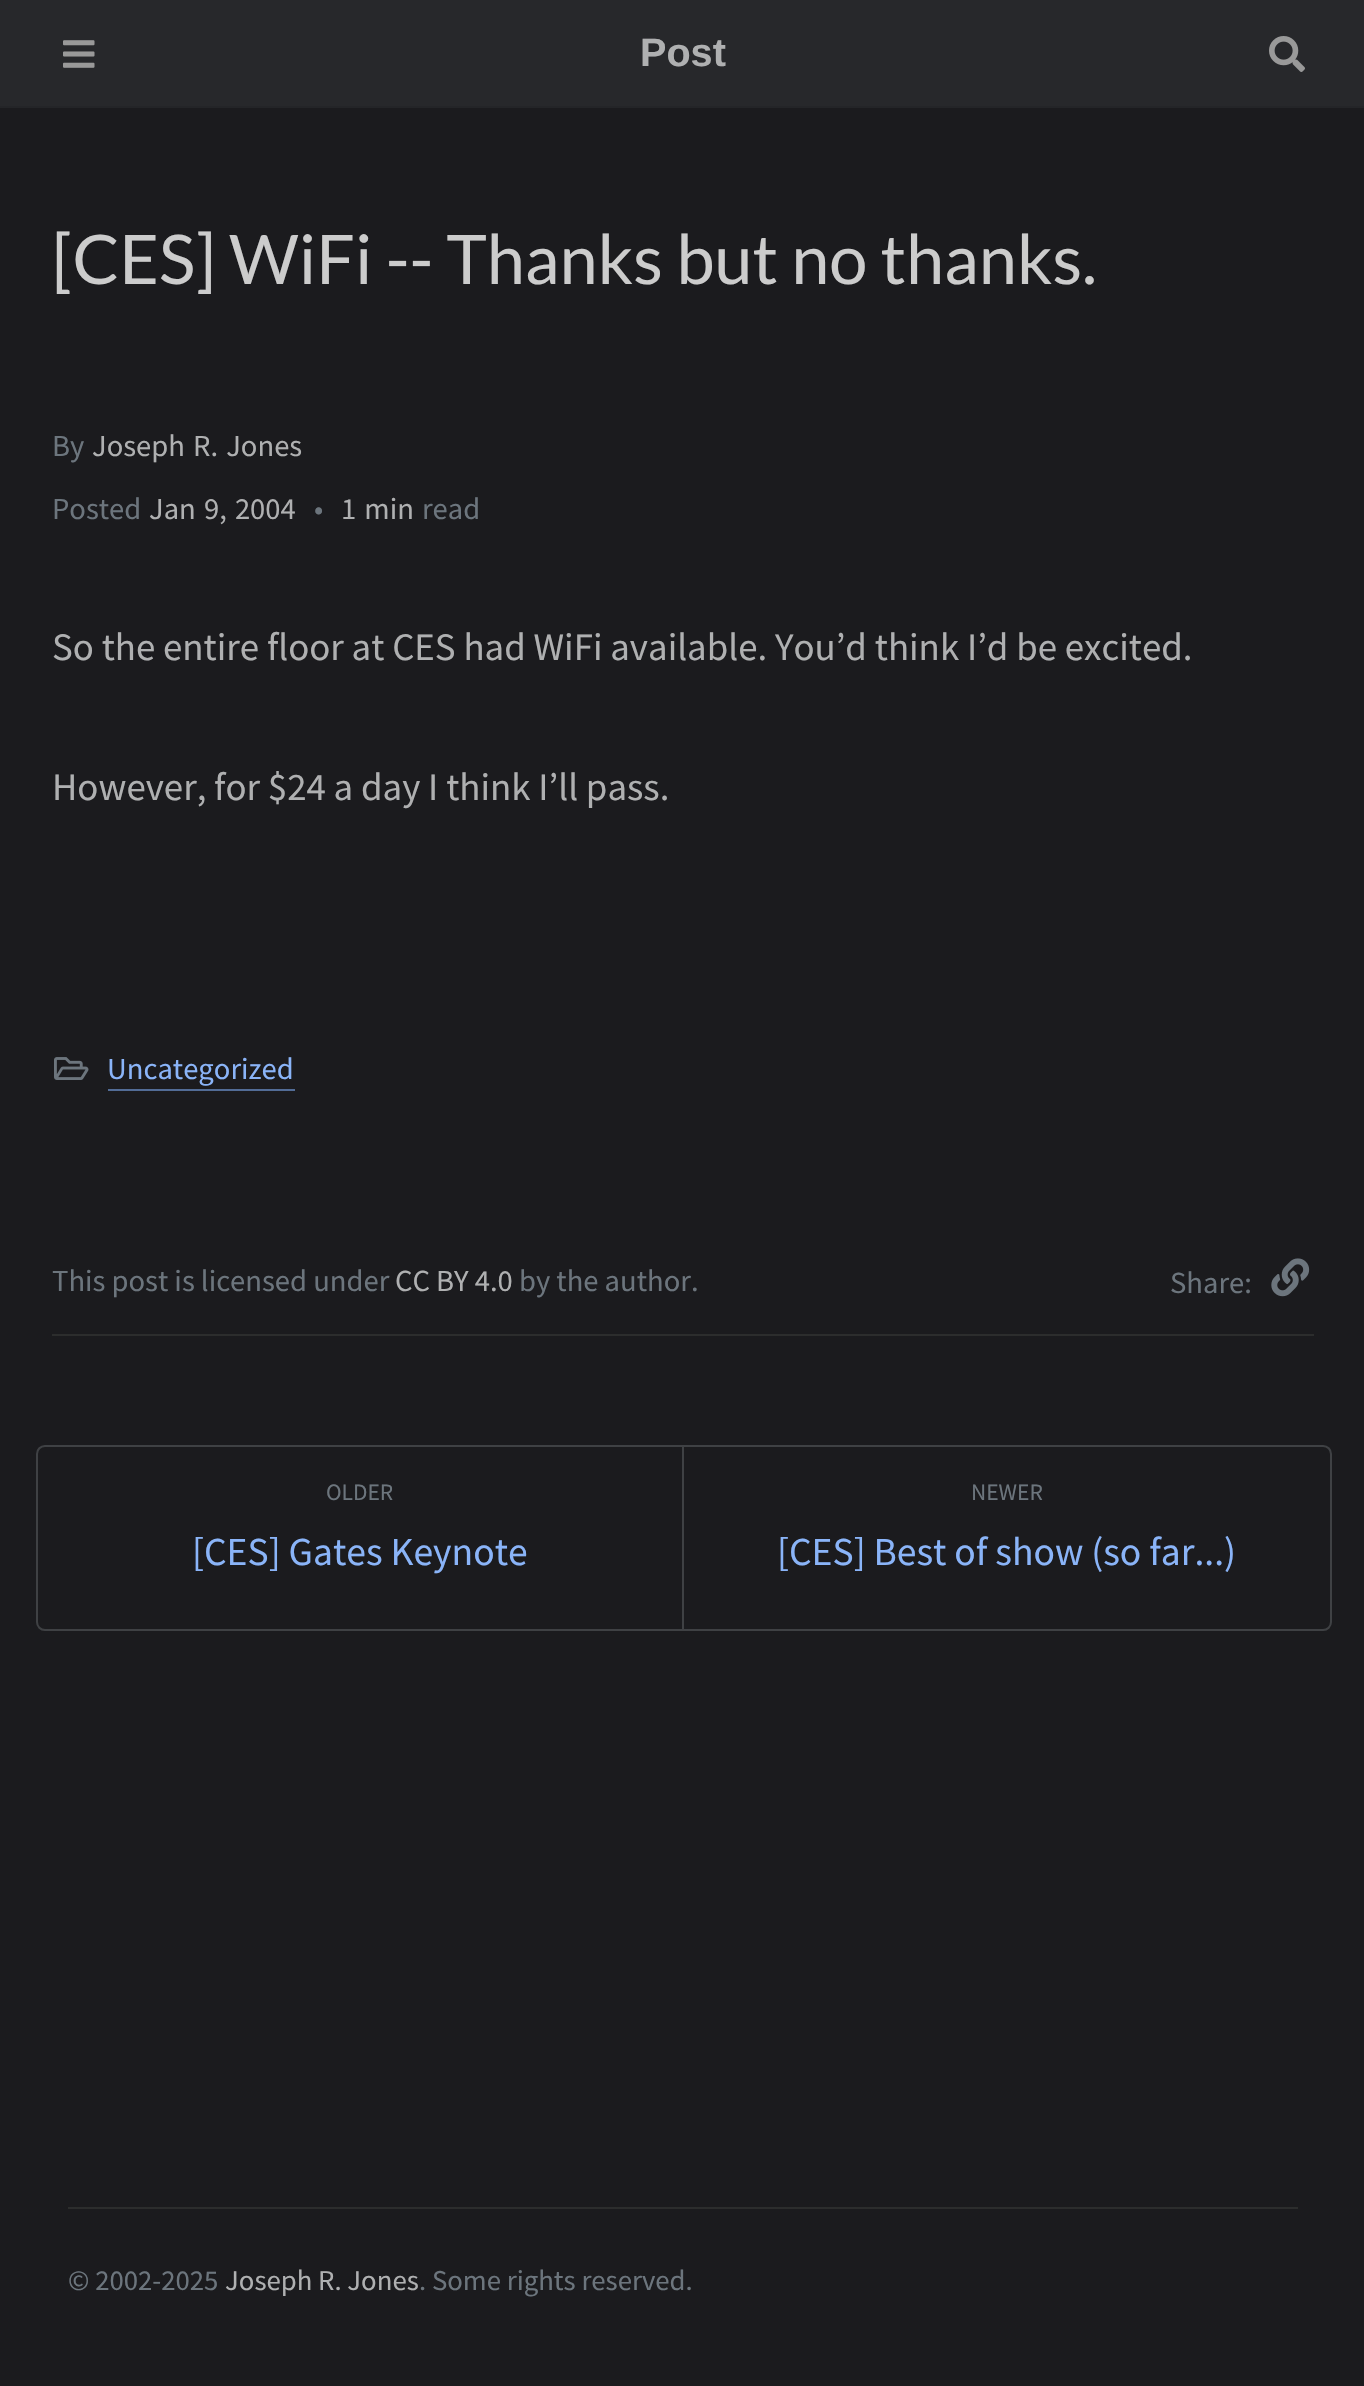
void draw(SkCanvas* canvas) {
    SkPaint paint;
    paint.setAntiAlias(true);
    auto spacedText = [&](const char* s, float x, float y, const SkFont& font, const SkPaint& ink, float letter, float word) {
        std::vector<SkGlyphID> glyphs(font.countText(s, strlen(s), SkTextEncoding::kUTF8));
        std::vector<float> xs(glyphs.size());
        font.textToGlyphs(s, strlen(s), SkTextEncoding::kUTF8, glyphs);
        font.getXPos(glyphs, xs, x);
        float extra = 0;
        for (size_t i = 0; i < glyphs.size(); i++) {
            xs[i] += extra;
            extra += letter + word * (glyphs[i] == font.unicharToGlyph(' '));
        }
        canvas->drawTextBlob(SkTextBlob::MakeFromPosHGlyphs(glyphs, xs, y, font), 0, 0, ink);
    };
    canvas->clear(0xFF1B1B1E);
    paint.setColor(0xFF27282B);
    canvas->drawRect(SkRect::MakeXYWH(0, 0, 1364, 106), paint);
    paint.setColor(0xFF242528);
    canvas->drawRect(SkRect::MakeXYWH(0, 106, 1364, 2), paint);
    canvas->drawImageRect(SkImages::DeferredFromEncodedData(SkData::MakeFromFileName("img1.png")), SkRect::MakeXYWH(63, 40, 32, 28), SkSamplingOptions());
    SkFont font1(fontMgr->matchFamilyStyle("Liberation Sans", SkFontStyle::Bold()), 39.6f);
    font1.setSubpixel(true);
    paint.setColor(0xFFAFB0B1);
    canvas->drawString("Post", 640, 66, font1, paint);
    canvas->drawImageRect(SkImages::DeferredFromEncodedData(SkData::MakeFromFileName("img2.png")), SkRect::MakeXYWH(1269, 36, 36, 36), SkSamplingOptions());
    SkFont font2(fontMgr->matchFamilyStyle("Lato", SkFontStyle::Normal()), 68.4f);
    font2.setSubpixel(true);
    paint.setColor(0xFFCCCCCC);
    canvas->drawString("[CES] WiFi -- Thanks but no thanks.", 52, 284, font2, paint);
    SkFont font3(fontMgr->matchFamilyStyle("Source Sans Pro", SkFontStyle::Normal()), 30.6f);
    font3.setSubpixel(true);
    paint.setColor(0xFF6C757D);
    canvas->drawString("By", 52, 456, font3, paint);
    paint.setColor(0xFFAFB0B1);
    spacedText("Joseph R. Jones", 92, 456, font3, paint, 0, 2);
    paint.setColor(0xFF6C757D);
    canvas->drawString("Posted", 52, 519, font3, paint);
    paint.setColor(0xFFAFB0B1);
    spacedText("Jan 9, 2004", 149, 519, font3, paint, 0, 2);
    paint.setColor(0xFF6C757D);
    canvas->drawString("•", 314, 519, font3, paint);
    paint.setColor(0xFFAFB0B1);
    spacedText("1 min", 341, 519, font3, paint, 0, 2);
    paint.setColor(0xFF6C757D);
    canvas->drawString("read", 422, 519, font3, paint);
    SkFont font4(fontMgr->matchFamilyStyle("Source Sans Pro", SkFontStyle::Normal()), 38.9f);
    font4.setSubpixel(true);
    paint.setColor(0xFFAFB0B1);
    canvas->drawString("So the entire floor at CES had WiFi available. You’d think I’d be excited.", 52, 660, font4, paint);
    canvas->drawString("However, for $24 a day I think I’ll pass.", 52, 800, font4, paint);
    paint.setColor(0xFF2C2D2D);
    canvas->drawRect(SkRect::MakeXYWH(52, 1334, 1262, 2), paint);
    canvas->drawImageRect(SkImages::DeferredFromEncodedData(SkData::MakeFromFileName("img3.png")), SkRect::MakeXYWH(54, 1057, 35, 23), SkSamplingOptions());
    paint.setColor(0xFF8AB4F8);
    canvas->drawString("Uncategorized", 107, 1079, font3, paint);
    paint.setColor(0xFF526C96);
    canvas->drawRect(SkRect::MakeXYWH(108, 1089, 187, 2), paint);
    paint.setColor(0xFF6C757D);
    canvas->drawString("This post is licensed under", 52, 1291, font3, paint);
    paint.setColor(0xFFAFB0B1);
    canvas->drawString("CC BY 4.0", 395, 1291, font3, paint);
    paint.setColor(0xFF6C757D);
    canvas->drawString("by the author.", 519, 1291, font3, paint);
    canvas->drawString("Share:", 1170, 1293, font3, paint);
    canvas->drawImageRect(SkImages::DeferredFromEncodedData(SkData::MakeFromFileName("img4.png")), SkRect::MakeXYWH(1271, 1258, 39, 39), SkSamplingOptions());
    paint.setStyle(SkPaint::kStroke_Style);
    paint.setStrokeWidth(2);
    paint.setColor(0xFF3F4144);
    canvas->drawPath(SkPathBuilder().moveTo(45, 1446).lineTo(683, 1446).lineTo(683, 1630).lineTo(45, 1630).cubicTo(40.5f, 1630, 37, 1626.5f, 37, 1622).lineTo(37, 1454).cubicTo(37, 1449.5f, 40.5f, 1446, 45, 1446).close().detach(), paint);
    SkFont font5(fontMgr->matchFamilyStyle("Source Sans Pro", SkFontStyle::Normal()), 23.5f);
    font5.setSubpixel(true);
    paint.setStyle(SkPaint::kFill_Style);
    paint.setColor(0xFF6C757D);
    canvas->drawString("OLDER", 326, 1500, font5, paint);
    SkFont font6(fontMgr->matchFamilyStyle("Source Sans Pro", SkFontStyle::Normal()), 39.6f);
    font6.setSubpixel(true);
    paint.setColor(0xFF8AB4F8);
    canvas->drawString("[CES] Gates Keynote", 192, 1565, font6, paint);
    paint.setStyle(SkPaint::kStroke_Style);
    paint.setColor(0xFF3F4144);
    canvas->drawPath(SkPathBuilder().moveTo(683, 1446).lineTo(1323, 1446).cubicTo(1327.5f, 1446, 1331, 1449.5f, 1331, 1454).lineTo(1331, 1622).cubicTo(1331, 1626.5f, 1327.5f, 1630, 1323, 1630).lineTo(683, 1630).close().detach(), paint);
    paint.setStyle(SkPaint::kFill_Style);
    paint.setColor(0xFF6C757D);
    canvas->drawString("NEWER", 971, 1500, font5, paint);
    paint.setColor(0xFF8AB4F8);
    canvas->drawString("[CES] Best of show (so far...)", 777, 1565, font6, paint);
    paint.setColor(0xFF2C2D2D);
    canvas->drawRect(SkRect::MakeXYWH(68, 2207, 1230, 2), paint);
    SkFont font7(fontMgr->matchFamilyStyle("Source Sans Pro", SkFontStyle::Normal()), 28.75f);
    font7.setSubpixel(true);
    paint.setColor(0xFF6C757D);
    canvas->drawString("© 2002-2025", 68, 2290, font7, paint);
    paint.setColor(0xFFAFB0B1);
    canvas->drawString("Joseph R. Jones", 225, 2290, font7, paint);
    paint.setColor(0xFF6C757D);
    canvas->drawString(". Some rights reserved.", 419, 2290, font7, paint);
}
